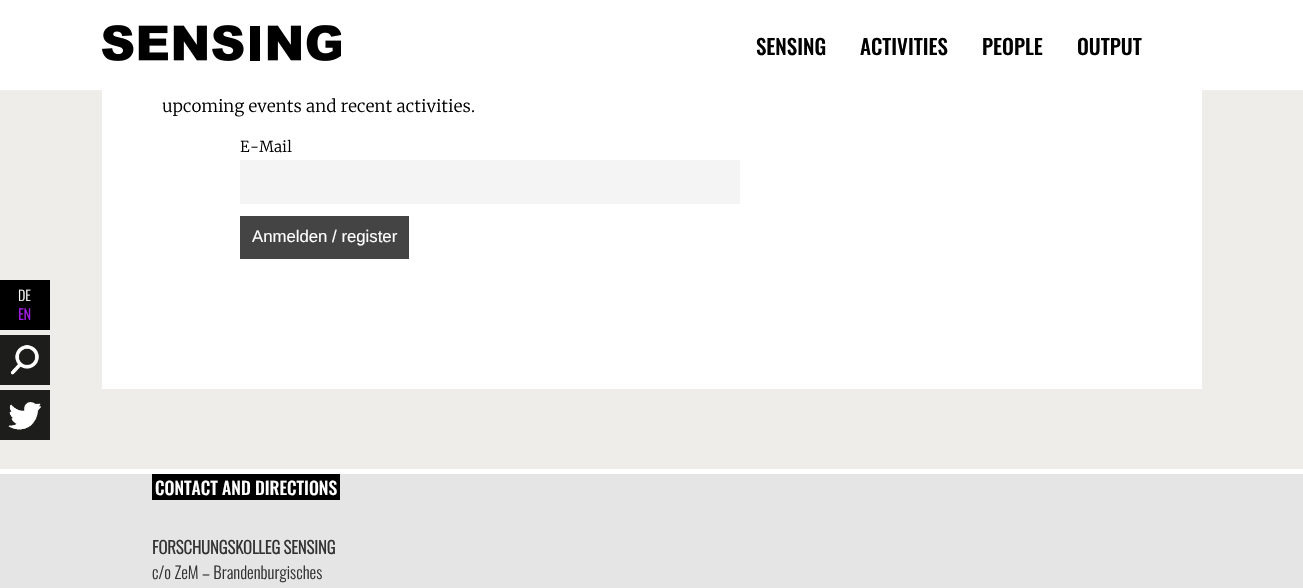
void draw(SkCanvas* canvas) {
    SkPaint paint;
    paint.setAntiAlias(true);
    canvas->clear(0xFFE5E5E5);
    paint.setColor(0xFFFFFFFF);
    canvas->drawRect(SkRect::MakeXYWH(0, 0, 1303, 90), paint);
    canvas->drawImageRect(SkImages::DeferredFromEncodedData(SkData::MakeFromFileName("img1.png")), SkRect::MakeXYWH(102, 25, 239, 36), SkSamplingOptions());
    SkFont font1(fontMgr->matchFamilyStyle("Oswald", SkFontStyle(500, SkFontStyle::kNormal_Width, SkFontStyle::kUpright_Slant)), 21);
    font1.setSubpixel(true);
    paint.setColor(0xFF000000);
    canvas->drawString("SENSING", 756, 55, font1, paint);
    canvas->drawString("ACTIVITIES", 860, 55, font1, paint);
    canvas->drawString("PEOPLE", 982, 55, font1, paint);
    canvas->drawString("OUTPUT", 1077, 55, font1, paint);
    paint.setColor(0xFFEFEDEA);
    canvas->drawRect(SkRect::MakeXYWH(0, 90, 1303, 379), paint);
    paint.setColor(0xFFFFFFFF);
    canvas->drawRect(SkRect::MakeXYWH(102, 90, 1100, 299), paint);
    SkFont font2(fontMgr->matchFamilyStyle("Merriweather", SkFontStyle(300, SkFontStyle::kNormal_Width, SkFontStyle::kUpright_Slant)), 16.75f);
    font2.setSubpixel(true);
    paint.setColor(0xFF000000);
    canvas->drawString("upcoming events and recent activities.", 162, 112, font2, paint);
    SkFont font3(fontMgr->matchFamilyStyle("Merriweather", SkFontStyle(300, SkFontStyle::kNormal_Width, SkFontStyle::kUpright_Slant)), 15);
    font3.setSubpixel(true);
    canvas->drawString("E-Mail", 240, 152, font3, paint);
    paint.setColor(0xFFF4F4F4);
    canvas->drawRect(SkRect::MakeXYWH(240, 160, 500, 44), paint);
    paint.setColor(0xFF444444);
    canvas->drawRect(SkRect::MakeXYWH(240, 216, 169, 43), paint);
    SkFont font4(fontMgr->matchFamilyStyle("Liberation Sans", SkFontStyle::Normal()), 16.75f);
    font4.setSubpixel(true);
    paint.setColor(0xFFFFFFFF);
    canvas->drawString("Anmelden / register", 252, 242, font4, paint);
    paint.setColor(0xFF000000);
    canvas->drawRect(SkRect::MakeXYWH(0, 280, 50, 50), paint);
    SkFont font5(fontMgr->matchFamilyStyle("Oswald", SkFontStyle(300, SkFontStyle::kNormal_Width, SkFontStyle::kUpright_Slant)), 14);
    font5.setSubpixel(true);
    paint.setColor(0xFFFFFFFF);
    canvas->drawString("DE", 18, 301, font5, paint);
    SkFont font6(fontMgr->matchFamilyStyle("Oswald", SkFontStyle::Bold()), 14);
    font6.setSubpixel(true);
    paint.setColor(0xFFA11DE4);
    canvas->drawString("EN", 18, 320, font6, paint);
    canvas->drawImageRect(SkImages::DeferredFromEncodedData(SkData::MakeFromFileName("img2.png")), SkRect::MakeXYWH(0, 335, 50, 50), SkSamplingOptions());
    canvas->drawImageRect(SkImages::DeferredFromEncodedData(SkData::MakeFromFileName("img3.png")), SkRect::MakeXYWH(0, 390, 50, 50), SkSamplingOptions());
    paint.setColor(0xFFFFFFFF);
    canvas->drawRect(SkRect::MakeXYWH(0, 469, 1303, 5), paint);
    paint.setColor(0xFF000000);
    canvas->drawRect(SkRect::MakeXYWH(152, 474, 188, 26), paint);
    SkFont font7(fontMgr->matchFamilyStyle("Oswald", SkFontStyle(500, SkFontStyle::kNormal_Width, SkFontStyle::kUpright_Slant)), 17.6f);
    font7.setSubpixel(true);
    paint.setColor(0xFFFFFFFF);
    canvas->drawString("CONTACT AND DIRECTIONS", 155, 495, font7, paint);
    SkFont font8(fontMgr->matchFamilyStyle("Oswald", SkFontStyle::Bold()), 16.75f);
    font8.setSubpixel(true);
    paint.setColor(0xFF333333);
    canvas->drawString("FORSCHUNGSKOLLEG SENSING", 152, 554, font8, paint);
    SkFont font9(fontMgr->matchFamilyStyle("Oswald", SkFontStyle(300, SkFontStyle::kNormal_Width, SkFontStyle::kUpright_Slant)), 16.75f);
    font9.setSubpixel(true);
    canvas->drawString("c/o ZeM – Brandenburgisches", 152, 579, font9, paint);
}
